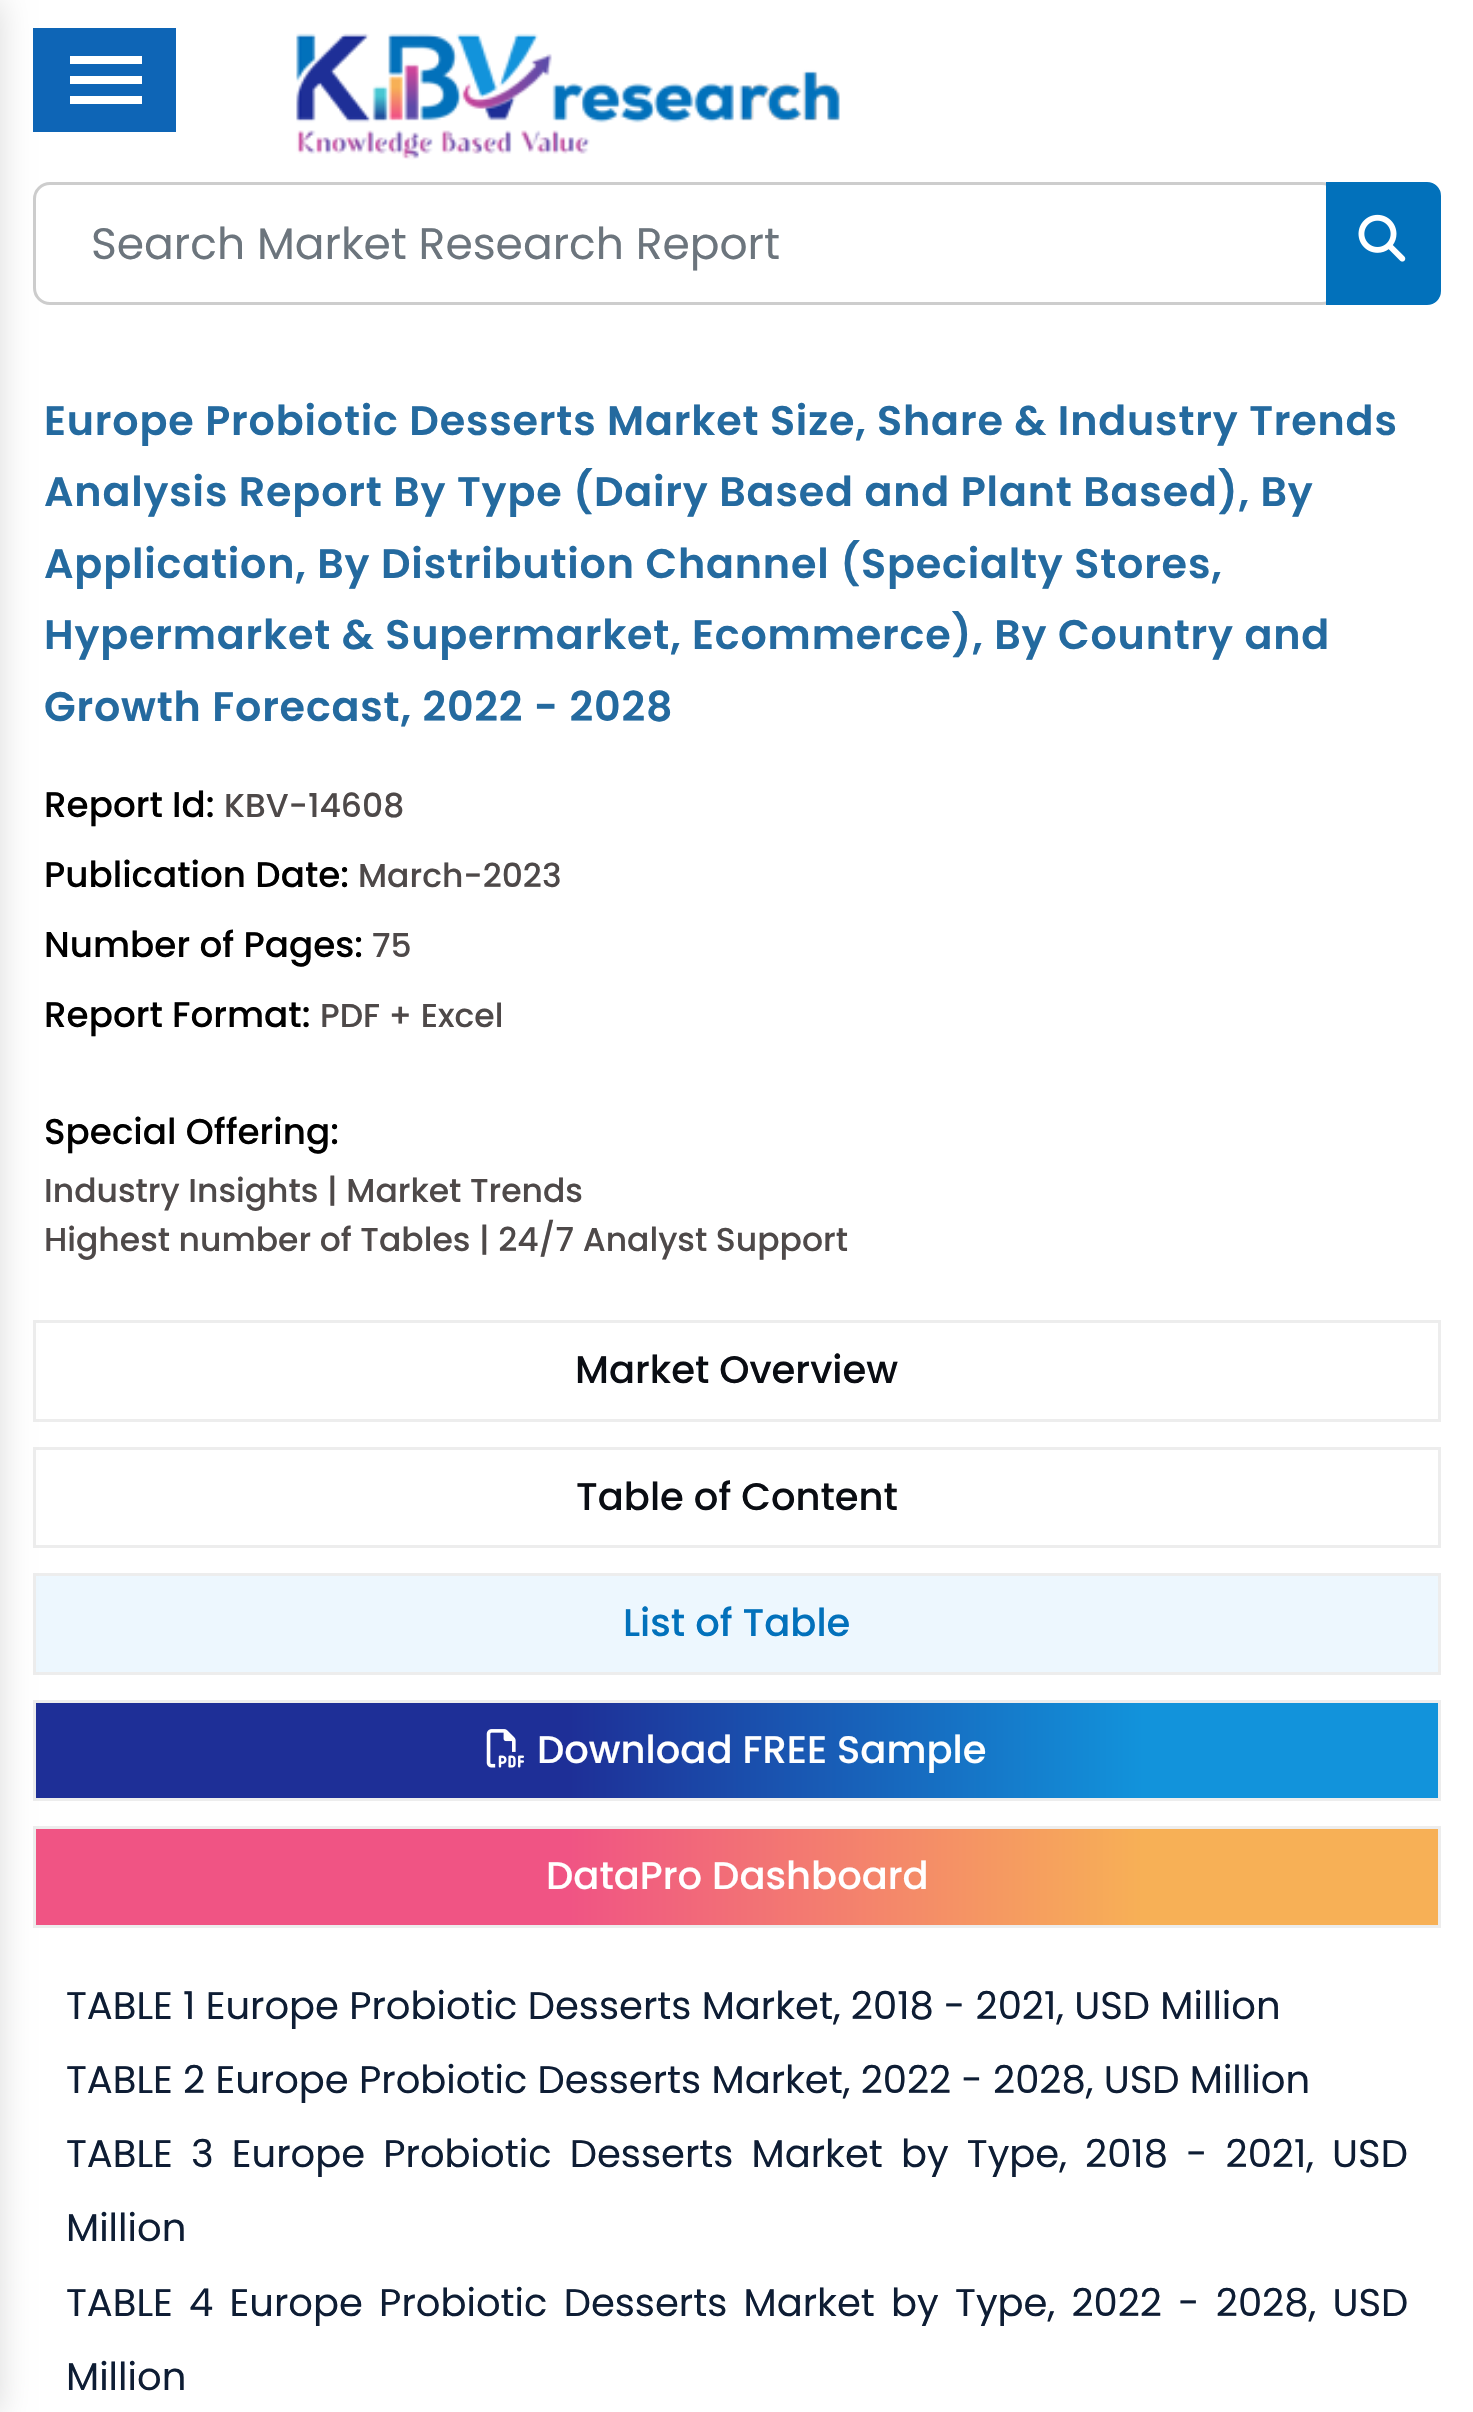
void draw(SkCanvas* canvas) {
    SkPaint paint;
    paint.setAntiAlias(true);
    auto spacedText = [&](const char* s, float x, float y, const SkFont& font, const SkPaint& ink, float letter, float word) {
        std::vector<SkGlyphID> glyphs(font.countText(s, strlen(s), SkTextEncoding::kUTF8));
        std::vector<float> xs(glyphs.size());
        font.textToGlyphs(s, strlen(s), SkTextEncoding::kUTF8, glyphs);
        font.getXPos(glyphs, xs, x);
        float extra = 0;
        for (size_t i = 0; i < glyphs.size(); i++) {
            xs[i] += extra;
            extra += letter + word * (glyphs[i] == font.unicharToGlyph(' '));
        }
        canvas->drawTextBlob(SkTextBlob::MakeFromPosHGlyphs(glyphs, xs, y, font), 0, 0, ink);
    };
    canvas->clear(0xFFFFFFFF);
    paint.setColor(0xFF0E65B6);
    canvas->drawRect(SkRect::MakeXYWH(33, 28, 143, 104), paint);
    paint.setStyle(SkPaint::kStroke_Style);
    paint.setStrokeWidth(3);
    paint.setColor(0xFFCDCDCD);
    canvas->drawRoundRect(SkRect::MakeXYWH(34.5f, 183.5f, 1303, 120), 15.5f, 15.5f, paint);
    paint.setColor(0xFFEDEDED);
    canvas->drawRect(SkRect::MakeXYWH(34.5f, 1321.5f, 1405, 99), paint);
    canvas->drawRect(SkRect::MakeXYWH(34.5f, 1448.5f, 1405, 98), paint);
    paint.setStyle(SkPaint::kFill_Style);
    paint.setColor(0xFFEDF7FE);
    canvas->drawRect(SkRect::MakeXYWH(34.5f, 1574.5f, 1405, 99), paint);
    paint.setStyle(SkPaint::kStroke_Style);
    paint.setColor(0xFFEDEDED);
    canvas->drawRect(SkRect::MakeXYWH(34.5f, 1574.5f, 1405, 99), paint);
    paint.setStyle(SkPaint::kFill_Style);
    {
        const SkColor colors[] = {0xFF1E2F97, 0xFF1293DB};
        const float stops[] = {0.38f, 0.79f};
        const SkPoint ends[] = {{36, 1750}, {1438, 1750}};
        paint.setShader(SkGradientShader::MakeLinear(ends, colors, stops, 2, SkTileMode::kClamp));
        paint.setAlpha(255);
    }
    canvas->drawRect(SkRect::MakeXYWH(36, 1703, 1402, 95), paint);
    paint.setStyle(SkPaint::kStroke_Style);
    paint.setShader(nullptr);
    paint.setColor(0xFFEDEDED);
    canvas->drawRect(SkRect::MakeXYWH(34.5f, 1701.5f, 1405, 98), paint);
    paint.setStyle(SkPaint::kFill_Style);
    {
        const SkColor colors[] = {0xFFF05484, 0xFFF7B056};
        const float stops[] = {0.38f, 0.79f};
        const SkPoint ends[] = {{36, 1877}, {1438, 1877}};
        paint.setShader(SkGradientShader::MakeLinear(ends, colors, stops, 2, SkTileMode::kClamp));
        paint.setAlpha(255);
    }
    canvas->drawRect(SkRect::MakeXYWH(36, 1829, 1402, 96), paint);
    paint.setStyle(SkPaint::kStroke_Style);
    paint.setShader(nullptr);
    paint.setColor(0xFFEDEDED);
    canvas->drawRect(SkRect::MakeXYWH(34.5f, 1827.5f, 1405, 99), paint);
    paint.setStyle(SkPaint::kFill_Style);
    paint.setColor(0x24000000);
    paint.setMaskFilter(SkMaskFilter::MakeBlur(kNormal_SkBlurStyle, 16.5f));
    canvas->drawRect(SkRect::MakeXYWH(-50, 0, 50, 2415), paint);
    paint.setMaskFilter(nullptr);
    paint.setColor(0xFFFFFFFF);
    canvas->drawPath(SkPathBuilder().moveTo(70, 104).lineTo(142, 104).lineTo(142, 96).lineTo(70, 96).close().moveTo(70, 84).lineTo(142, 84).lineTo(142, 76).lineTo(70, 76).close().moveTo(70, 56).lineTo(70, 64).lineTo(142, 64).lineTo(142, 56).close().detach(), paint);
    canvas->drawImageRect(SkImages::DeferredFromEncodedData(SkData::MakeFromFileName("img1.png")), SkRect::MakeXYWH(296, 33, 544, 127), SkSamplingOptions());
    paint.setColor(0xFF0271BB);
    canvas->drawPath(SkPathBuilder().moveTo(1327.5f, 183.5f).lineTo(1427, 183.5f).cubicTo(1434, 183.5f, 1439.5f, 189, 1439.5f, 196).lineTo(1439.5f, 291).cubicTo(1439.5f, 298, 1434, 303.5f, 1427, 303.5f).lineTo(1327.5f, 303.5f).close().detach(), paint);
    paint.setStyle(SkPaint::kStroke_Style);
    canvas->drawPath(SkPathBuilder().moveTo(1327.5f, 183.5f).lineTo(1427, 183.5f).cubicTo(1434, 183.5f, 1439.5f, 189, 1439.5f, 196).lineTo(1439.5f, 291).cubicTo(1439.5f, 298, 1434, 303.5f, 1427, 303.5f).lineTo(1327.5f, 303.5f).close().detach(), paint);
    SkFont font1(fontMgr->matchFamilyStyle("Poppins", SkFontStyle::Normal()), 44);
    font1.setSubpixel(true);
    paint.setStyle(SkPaint::kFill_Style);
    paint.setColor(0xFF6C757D);
    canvas->drawString("Search Market Research Report", 91, 259, font1, paint);
    canvas->drawImageRect(SkImages::DeferredFromEncodedData(SkData::MakeFromFileName("img2.png")), SkRect::MakeXYWH(1358, 214, 48, 48), SkSamplingOptions());
    SkFont font2(fontMgr->matchFamilyStyle("Poppins", SkFontStyle(600, SkFontStyle::kNormal_Width, SkFontStyle::kUpright_Slant)), 41.25f);
    font2.setSubpixel(true);
    paint.setColor(0xFF246A9F);
    spacedText("Europe Probiotic Desserts Market Size, Share & Industry Trends", 44, 435, font2, paint, 0.82f, 0);
    spacedText("Analysis Report By Type (Dairy Based and Plant Based), By", 44, 506, font2, paint, 0.82f, 0);
    spacedText("Application, By Distribution Channel (Specialty Stores,", 44, 578, font2, paint, 0.82f, 0);
    spacedText("Hypermarket & Supermarket, Ecommerce), By Country and", 44, 649, font2, paint, 0.82f, 0);
    spacedText("Growth Forecast, 2022 - 2028", 44, 721, font2, paint, 0.82f, 0);
    SkFont font3(fontMgr->matchFamilyStyle("Poppins", SkFontStyle(500, SkFontStyle::kNormal_Width, SkFontStyle::kUpright_Slant)), 35.75f);
    font3.setSubpixel(true);
    paint.setColor(0xFF000000);
    canvas->drawString("Report Id:", 44, 817, font3, paint);
    SkFont font4(fontMgr->matchFamilyStyle("Poppins", SkFontStyle(500, SkFontStyle::kNormal_Width, SkFontStyle::kUpright_Slant)), 33);
    font4.setSubpixel(true);
    paint.setColor(0xFF4E4949);
    canvas->drawString("KBV-14608", 224, 817, font4, paint);
    paint.setColor(0xFF000000);
    canvas->drawString("Publication Date:", 44, 887, font3, paint);
    paint.setColor(0xFF4E4949);
    canvas->drawString("March-2023", 358, 887, font4, paint);
    paint.setColor(0xFF000000);
    canvas->drawString("Number of Pages:", 44, 957, font3, paint);
    paint.setColor(0xFF4E4949);
    canvas->drawString("75", 372, 957, font4, paint);
    paint.setColor(0xFF000000);
    canvas->drawString("Report Format:", 44, 1027, font3, paint);
    paint.setColor(0xFF4E4949);
    canvas->drawString("PDF + Excel", 320, 1027, font4, paint);
    paint.setColor(0xFF000000);
    canvas->drawString("Special Offering:", 44, 1144, font3, paint);
    paint.setColor(0xFF4E4949);
    canvas->drawString("Industry Insights | Market Trends", 44, 1202, font4, paint);
    canvas->drawString("Highest number of Tables | 24/7 Analyst Support", 44, 1251, font4, paint);
    SkFont font5(fontMgr->matchFamilyStyle("Poppins", SkFontStyle(500, SkFontStyle::kNormal_Width, SkFontStyle::kUpright_Slant)), 38.5f);
    font5.setSubpixel(true);
    paint.setColor(0xFF0A0D13);
    canvas->drawString("Market Overview", 575, 1383, font5, paint);
    canvas->drawString("Table of Content", 576, 1510, font5, paint);
    paint.setColor(0xFF0271BB);
    canvas->drawString("List of Table", 623, 1636, font5, paint);
    canvas->drawImageRect(SkImages::DeferredFromEncodedData(SkData::MakeFromFileName("img3.png")), SkRect::MakeXYWH(486, 1729, 38, 39), SkSamplingOptions());
    paint.setColor(0xFFFFFFFF);
    canvas->drawString("Download FREE Sample", 537, 1763, font5, paint);
    canvas->drawString("DataPro Dashboard", 546, 1889, font5, paint);
    SkFont font6(fontMgr->matchFamilyStyle("Poppins", SkFontStyle::Normal()), 38.5f);
    font6.setSubpixel(true);
    paint.setColor(0xFF0E1D34);
    canvas->drawString("TABLE 1 Europe Probiotic Desserts Market, 2018 - 2021, USD Million", 66, 2019, font6, paint);
    canvas->drawString("TABLE 2 Europe Probiotic Desserts Market, 2022 - 2028, USD Million", 66, 2093, font6, paint);
    spacedText("TABLE 3 Europe Probiotic Desserts Market by Type, 2018 - 2021, USD", 66, 2167, font6, paint, 0, 7.9f);
    canvas->drawString("Million", 66, 2241, font6, paint);
    spacedText("TABLE 4 Europe Probiotic Desserts Market by Type, 2022 - 2028, USD", 66, 2316, font6, paint, 0, 6);
    canvas->drawString("Million", 66, 2390, font6, paint);
}
